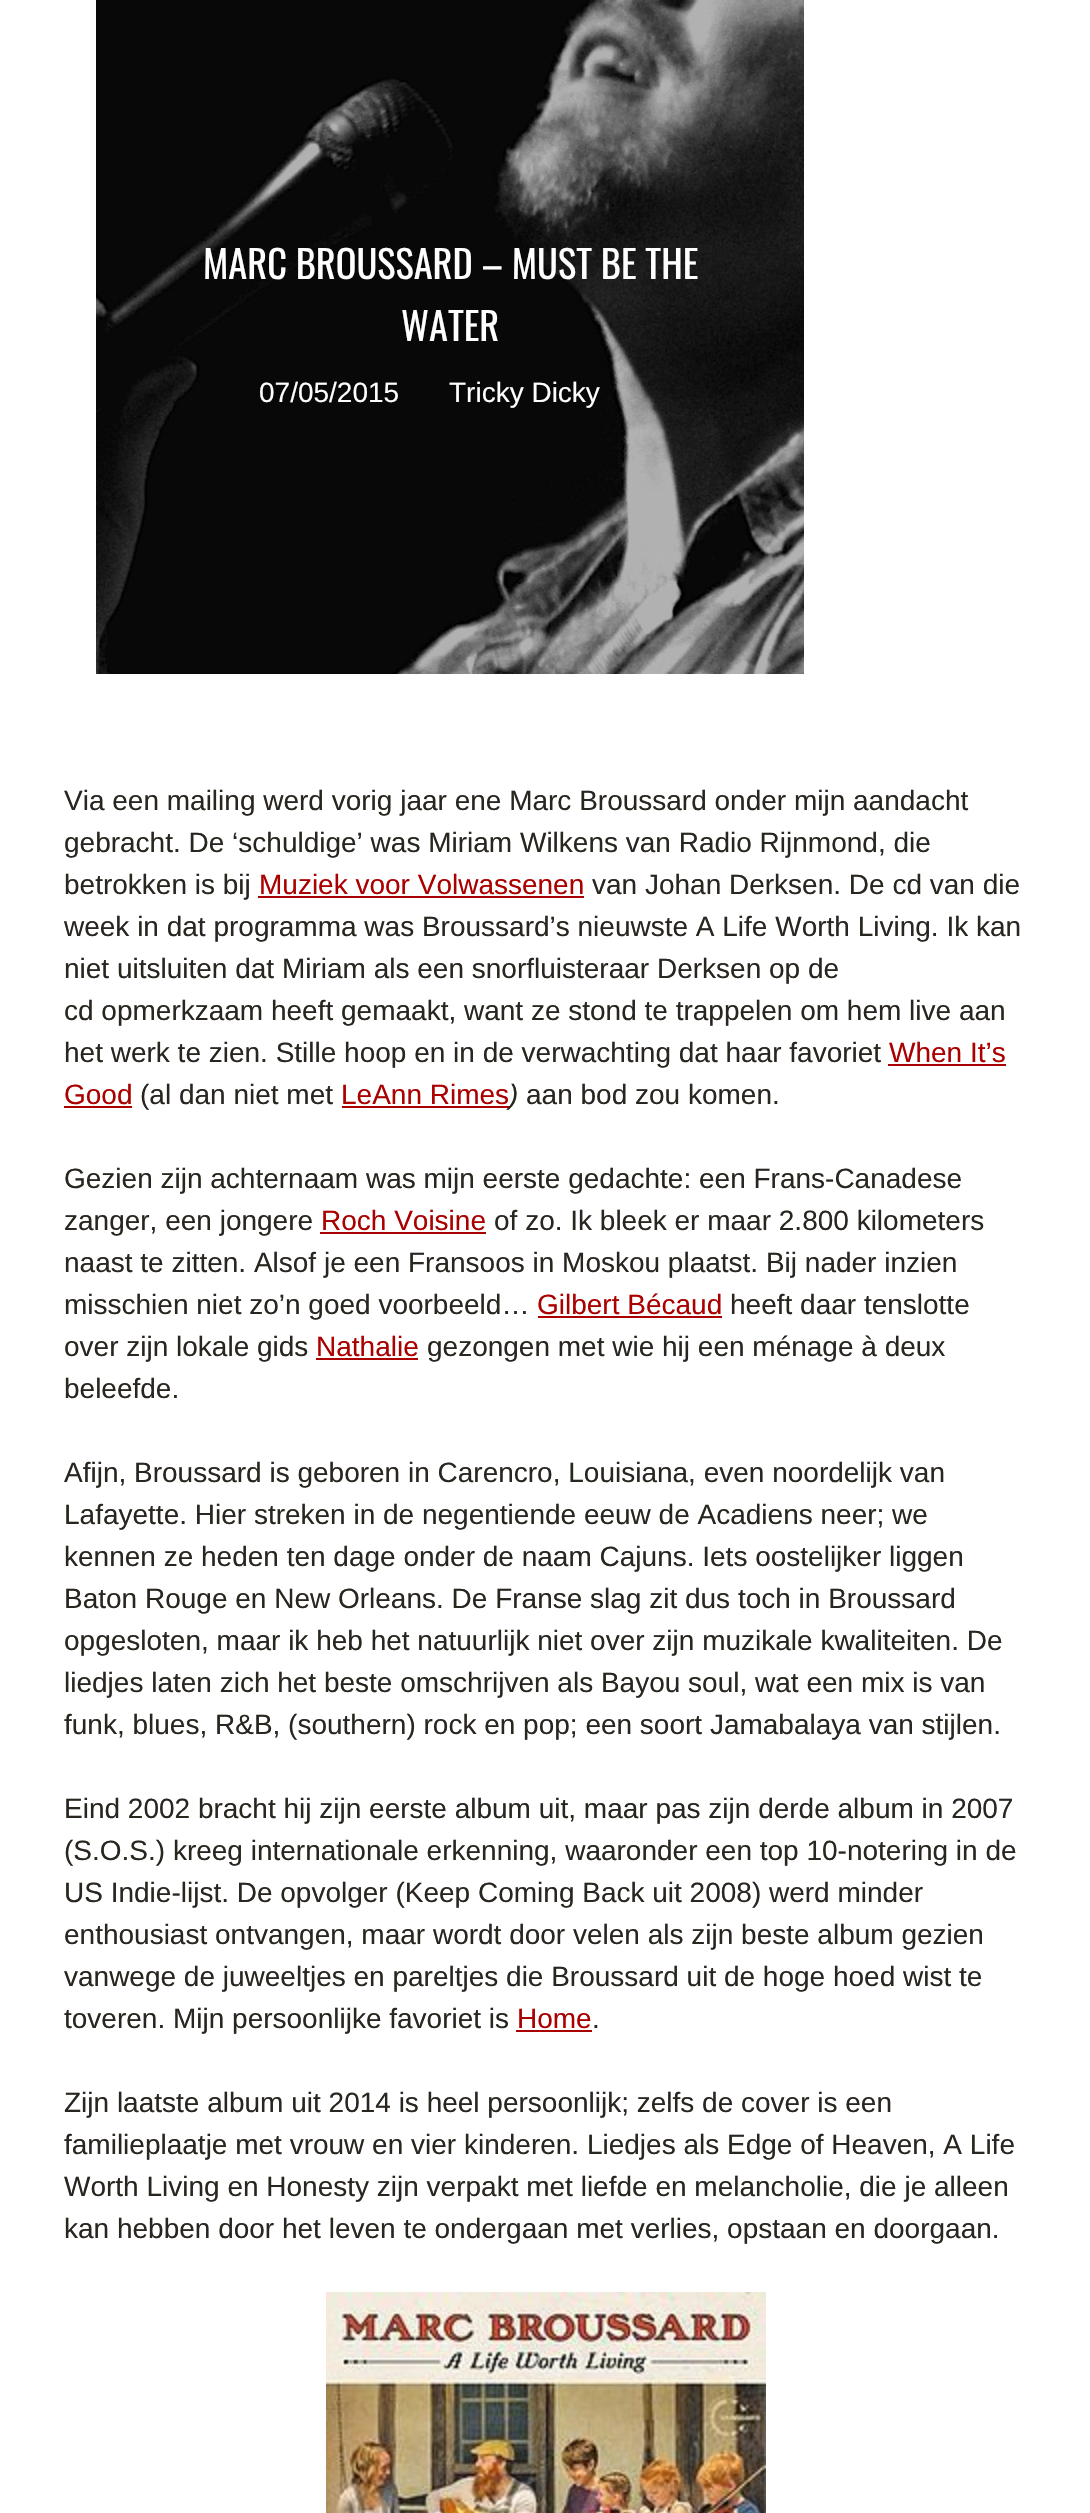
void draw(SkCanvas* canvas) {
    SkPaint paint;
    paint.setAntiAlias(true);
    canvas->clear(0xFFFFFFFF);
    canvas->drawImageRect(SkImages::DeferredFromEncodedData(SkData::MakeFromFileName("img1.png")), SkRect::MakeXYWH(96, 0, 708, 674), SkSamplingOptions());
    SkFont font1(fontMgr->matchFamilyStyle("Oswald", SkFontStyle::Normal()), 38.4f);
    font1.setSubpixel(true);
    paint.setColor(0xFFFFFFFF);
    canvas->drawString("MARC BROUSSARD – MUST BE THE", 203, 279, font1, paint);
    canvas->drawString("WATER", 401, 341, font1, paint);
    SkFont font2(fontMgr->matchFamilyStyle("Liberation Sans", SkFontStyle::Normal()), 28);
    font2.setSubpixel(true);
    canvas->drawString("07/05/2015", 259, 402, font2, paint);
    canvas->drawString("Tricky Dicky", 449, 402, font2, paint);
    paint.setColor(0xFF29251F);
    canvas->drawString("Via een mailing werd vorig jaar ene Marc Broussard onder mijn aandacht", 64, 810, font2, paint);
    canvas->drawString("gebracht. De ‘schuldige’ was Miriam Wilkens van Radio Rijnmond, die", 64, 852, font2, paint);
    canvas->drawString("betrokken is bij", 64, 894, font2, paint);
    paint.setColor(0xFFAA0000);
    canvas->drawString("Muziek voor Volwassenen", 259, 894, font2, paint);
    canvas->drawRect(SkRect::MakeXYWH(258, 896, 326, 2), paint);
    paint.setColor(0xFF29251F);
    canvas->drawString("van Johan Derksen. De cd van die", 592, 894, font2, paint);
    canvas->drawString("week in dat programma was Broussard’s nieuwste A Life Worth Living. Ik kan", 64, 936, font2, paint);
    canvas->drawString("niet uitsluiten dat Miriam als een snorfluisteraar Derksen op de", 64, 978, font2, paint);
    canvas->drawString("cd opmerkzaam heeft gemaakt, want ze stond te trappelen om hem live aan", 64, 1020, font2, paint);
    canvas->drawString("het werk te zien. Stille hoop en in de verwachting dat haar favoriet", 64, 1062, font2, paint);
    paint.setColor(0xFFAA0000);
    canvas->drawString("When It’s", 889, 1062, font2, paint);
    canvas->drawRect(SkRect::MakeXYWH(888, 1064, 118, 2), paint);
    canvas->drawString("Good", 64, 1104, font2, paint);
    canvas->drawRect(SkRect::MakeXYWH(64, 1106, 68, 2), paint);
    paint.setColor(0xFF29251F);
    canvas->drawString("(al dan niet met", 140, 1104, font2, paint);
    paint.setColor(0xFFAA0000);
    canvas->drawString("LeAnn Rimes", 341, 1104, font2, paint);
    canvas->drawRect(SkRect::MakeXYWH(342, 1106, 168, 2), paint);
    SkFont font3(fontMgr->matchFamilyStyle("Liberation Sans", SkFontStyle::Italic()), 28);
    font3.setSubpixel(true);
    paint.setColor(0xFF29251F);
    canvas->drawString(")", 509, 1104, font3, paint);
    canvas->drawString("aan bod zou komen.", 526, 1104, font2, paint);
    canvas->drawString("Gezien zijn achternaam was mijn eerste gedachte: een Frans-Canadese", 64, 1188, font2, paint);
    canvas->drawString("zanger, een jongere", 64, 1230, font2, paint);
    paint.setColor(0xFFAA0000);
    canvas->drawString("Roch Voisine", 321, 1230, font2, paint);
    canvas->drawRect(SkRect::MakeXYWH(320, 1232, 166, 2), paint);
    paint.setColor(0xFF29251F);
    canvas->drawString("of zo. Ik bleek er maar 2.800 kilometers", 494, 1230, font2, paint);
    canvas->drawString("naast te zitten. Alsof je een Fransoos in Moskou plaatst. Bij nader inzien", 64, 1272, font2, paint);
    canvas->drawString("misschien niet zo’n goed voorbeeld…", 64, 1314, font2, paint);
    paint.setColor(0xFFAA0000);
    canvas->drawString("Gilbert Bécaud", 537, 1314, font2, paint);
    canvas->drawRect(SkRect::MakeXYWH(538, 1316, 184, 2), paint);
    paint.setColor(0xFF29251F);
    canvas->drawString("heeft daar tenslotte", 730, 1314, font2, paint);
    canvas->drawString("over zijn lokale gids", 64, 1356, font2, paint);
    paint.setColor(0xFFAA0000);
    canvas->drawString("Nathalie", 316, 1356, font2, paint);
    canvas->drawRect(SkRect::MakeXYWH(316, 1358, 102, 2), paint);
    paint.setColor(0xFF29251F);
    canvas->drawString("gezongen met wie hij een ménage à deux", 427, 1356, font2, paint);
    canvas->drawString("beleefde.", 64, 1398, font2, paint);
    canvas->drawString("Afijn, Broussard is geboren in Carencro, Louisiana, even noordelijk van", 64, 1482, font2, paint);
    canvas->drawString("Lafayette. Hier streken in de negentiende eeuw de Acadiens neer; we", 64, 1524, font2, paint);
    canvas->drawString("kennen ze heden ten dage onder de naam Cajuns. Iets oostelijker liggen", 64, 1566, font2, paint);
    canvas->drawString("Baton Rouge en New Orleans. De Franse slag zit dus toch in Broussard", 64, 1608, font2, paint);
    canvas->drawString("opgesloten, maar ik heb het natuurlijk niet over zijn muzikale kwaliteiten. De", 64, 1650, font2, paint);
    canvas->drawString("liedjes laten zich het beste omschrijven als Bayou soul, wat een mix is van", 64, 1692, font2, paint);
    canvas->drawString("funk, blues, R&B, (southern) rock en pop; een soort Jamabalaya van stijlen.", 64, 1734, font2, paint);
    canvas->drawString("Eind 2002 bracht hij zijn eerste album uit, maar pas zijn derde album in 2007", 64, 1818, font2, paint);
    canvas->drawString("(S.O.S.) kreeg internationale erkenning, waaronder een top 10-notering in de", 64, 1860, font2, paint);
    canvas->drawString("US Indie-lijst. De opvolger (Keep Coming Back uit 2008) werd minder", 64, 1902, font2, paint);
    canvas->drawString("enthousiast ontvangen, maar wordt door velen als zijn beste album gezien", 64, 1944, font2, paint);
    canvas->drawString("vanwege de juweeltjes en pareltjes die Broussard uit de hoge hoed wist te", 64, 1986, font2, paint);
    canvas->drawString("toveren. Mijn persoonlijke favoriet is", 64, 2028, font2, paint);
    paint.setColor(0xFFAA0000);
    canvas->drawString("Home", 517, 2028, font2, paint);
    canvas->drawRect(SkRect::MakeXYWH(516, 2030, 76, 2), paint);
    paint.setColor(0xFF29251F);
    canvas->drawString(".", 592, 2028, font2, paint);
    canvas->drawString("Zijn laatste album uit 2014 is heel persoonlijk; zelfs de cover is een", 64, 2112, font2, paint);
    canvas->drawString("familieplaatje met vrouw en vier kinderen. Liedjes als Edge of Heaven, A Life", 64, 2154, font2, paint);
    canvas->drawString("Worth Living en Honesty zijn verpakt met liefde en melancholie, die je alleen", 64, 2196, font2, paint);
    canvas->drawString("kan hebben door het leven te ondergaan met verlies, opstaan en doorgaan.", 64, 2238, font2, paint);
    canvas->drawImageRect(SkImages::DeferredFromEncodedData(SkData::MakeFromFileName("img2.png")), SkRect::MakeXYWH(326, 2292, 440, 221), SkSamplingOptions());
}
